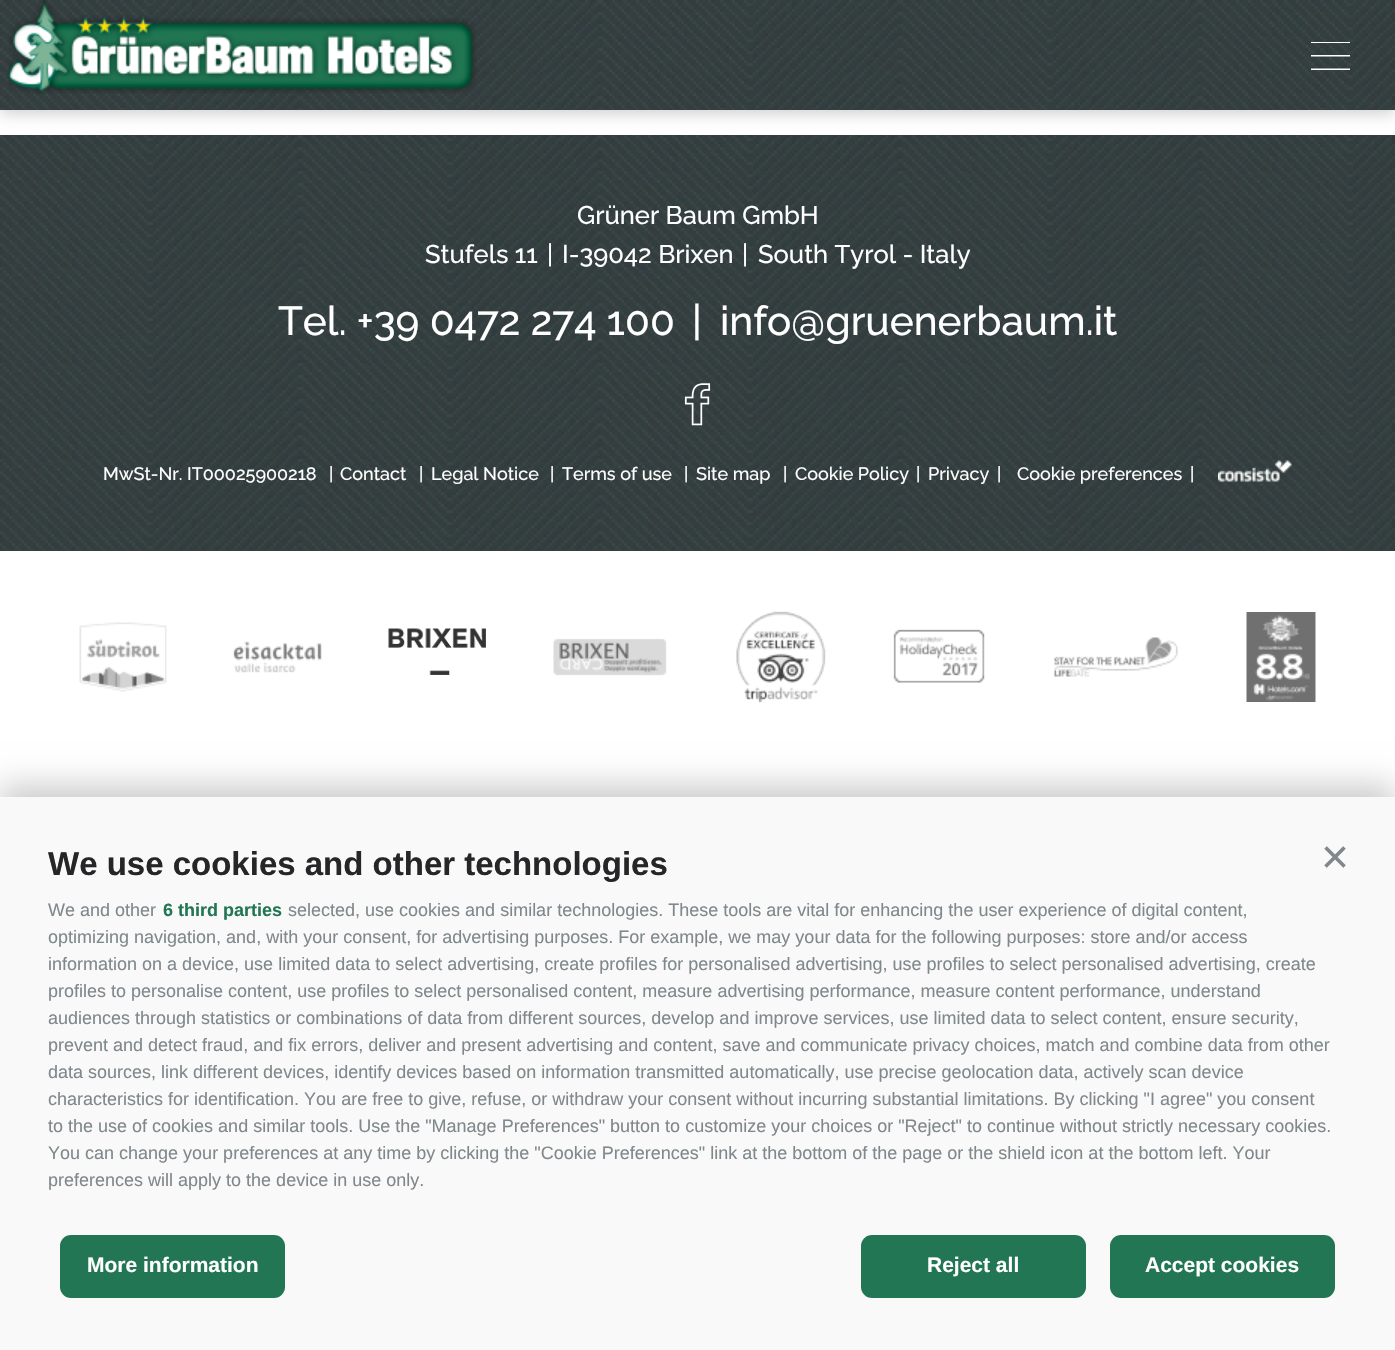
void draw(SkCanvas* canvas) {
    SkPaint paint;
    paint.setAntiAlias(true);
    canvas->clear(0xFFFFFFFF);
    paint.setColor(0xFF363E42);
    canvas->drawRect(SkRect::MakeXYWH(0, 550, 1395, 1), paint);
    canvas->drawImageRect(SkImages::DeferredFromEncodedData(SkData::MakeFromFileName("img3.png")), SkRect::MakeXYWH(0, 135, 1395, 416), SkSamplingOptions());
    paint.setColor(0x33000000);
    paint.setMaskFilter(SkMaskFilter::MakeBlur(kNormal_SkBlurStyle, 7.5f));
    canvas->drawRect(SkRect::MakeXYWH(0, 3, 1395, 110), paint);
    paint.setMaskFilter(nullptr);
    paint.setColor(0xFF363E42);
    canvas->drawRect(SkRect::MakeXYWH(0, 109, 1395, 1), paint);
    canvas->drawImageRect(SkImages::DeferredFromEncodedData(SkData::MakeFromFileName("img1.png")), SkRect::MakeXYWH(0, 0, 1395, 110), SkSamplingOptions());
    canvas->drawImageRect(SkImages::DeferredFromEncodedData(SkData::MakeFromFileName("img2.png")), SkRect::MakeXYWH(7, 0, 470, 94), SkSamplingOptions());
    paint.setColor(0xFFFFFFFF);
    canvas->drawPath(SkPathBuilder().moveTo(1311, 43).lineTo(1311, 42).lineTo(1350, 42).lineTo(1350, 43).close().moveTo(1311, 56.5f).lineTo(1311, 55).lineTo(1350, 55).lineTo(1350, 56.5f).close().moveTo(1311, 70).lineTo(1311, 68.5f).lineTo(1350, 68.5f).lineTo(1350, 70).close().detach(), paint);
    SkFont font1(fontMgr->matchFamilyStyle("Raleway", SkFontStyle(500, SkFontStyle::kNormal_Width, SkFontStyle::kUpright_Slant)), 25.5f);
    font1.setSubpixel(true);
    canvas->drawString("Grüner Baum GmbH", 577, 224, font1, paint);
    canvas->drawString("Stufels 11", 425, 263, font1, paint);
    canvas->drawString("|", 547, 263, font1, paint);
    canvas->drawString("I-39042 Brixen", 562, 263, font1, paint);
    canvas->drawString("|", 742, 263, font1, paint);
    canvas->drawString("South Tyrol - Italy", 758, 263, font1, paint);
    SkFont font2(fontMgr->matchFamilyStyle("Raleway", SkFontStyle(500, SkFontStyle::kNormal_Width, SkFontStyle::kUpright_Slant)), 40.5f);
    font2.setSubpixel(true);
    canvas->drawString("Tel. +39 0472 274 100", 278, 335, font2, paint);
    canvas->drawString("|", 692, 335, font2, paint);
    canvas->drawString("info@gruenerbaum.it", 720, 335, font2, paint);
    canvas->drawImageRect(SkImages::DeferredFromEncodedData(SkData::MakeFromFileName("img4.png")), SkRect::MakeXYWH(684, 383, 27, 43), SkSamplingOptions());
    SkFont font3(fontMgr->matchFamilyStyle("Raleway", SkFontStyle(500, SkFontStyle::kNormal_Width, SkFontStyle::kUpright_Slant)), 18);
    font3.setSubpixel(true);
    canvas->drawString("MwSt-Nr. IT00025900218", 103, 480, font3, paint);
    canvas->drawString("|", 329, 480, font3, paint);
    canvas->drawString("Contact", 340, 480, font3, paint);
    canvas->drawString("|", 419, 480, font3, paint);
    canvas->drawString("Legal Notice", 431, 480, font3, paint);
    canvas->drawString("|", 550, 480, font3, paint);
    canvas->drawString("Terms of use", 562, 480, font3, paint);
    canvas->drawString("|", 684, 480, font3, paint);
    canvas->drawString("Site map", 696, 480, font3, paint);
    canvas->drawString("|", 783, 480, font3, paint);
    canvas->drawString("Cookie Policy", 795, 480, font3, paint);
    canvas->drawString("|", 916, 480, font3, paint);
    canvas->drawString("Privacy", 928, 480, font3, paint);
    canvas->drawString("|", 997, 480, font3, paint);
    canvas->drawString("Cookie preferences", 1017, 480, font3, paint);
    canvas->drawString("|", 1190, 480, font3, paint);
    canvas->drawImageRect(SkImages::DeferredFromEncodedData(SkData::MakeFromFileName("img5.png")), SkRect::MakeXYWH(1218, 460, 74, 22), SkSamplingOptions());
    canvas->drawImageRect(SkImages::DeferredFromEncodedData(SkData::MakeFromFileName("img6.png")), SkRect::MakeXYWH(79, 622, 88, 70), SkSamplingOptions());
    canvas->drawImageRect(SkImages::DeferredFromEncodedData(SkData::MakeFromFileName("img7.png")), SkRect::MakeXYWH(233, 641, 89, 32), SkSamplingOptions());
    canvas->drawImageRect(SkImages::DeferredFromEncodedData(SkData::MakeFromFileName("img8.png")), SkRect::MakeXYWH(388, 628, 98, 47), SkSamplingOptions());
    canvas->drawImageRect(SkImages::DeferredFromEncodedData(SkData::MakeFromFileName("img9.png")), SkRect::MakeXYWH(553, 638, 114, 38), SkSamplingOptions());
    canvas->drawImageRect(SkImages::DeferredFromEncodedData(SkData::MakeFromFileName("img10.png")), SkRect::MakeXYWH(736, 611, 90, 92), SkSamplingOptions());
    canvas->drawImageRect(SkImages::DeferredFromEncodedData(SkData::MakeFromFileName("img11.png")), SkRect::MakeXYWH(893, 629, 92, 54), SkSamplingOptions());
    canvas->drawImageRect(SkImages::DeferredFromEncodedData(SkData::MakeFromFileName("img12.png")), SkRect::MakeXYWH(1054, 637, 124, 40), SkSamplingOptions());
    canvas->drawImageRect(SkImages::DeferredFromEncodedData(SkData::MakeFromFileName("img13.png")), SkRect::MakeXYWH(1246, 612, 70, 90), SkSamplingOptions());
    paint.setColor(0x33000000);
    paint.setMaskFilter(SkMaskFilter::MakeBlur(kNormal_SkBlurStyle, 15));
    canvas->drawRect(SkRect::MakeXYWH(0, 785, 1395, 553), paint);
    paint.setMaskFilter(nullptr);
    paint.setColor(0xFFF9F9F9);
    canvas->drawRect(SkRect::MakeXYWH(0, 797, 1395, 553), paint);
    SkFont font4(fontMgr->matchFamilyStyle("Liberation Sans", SkFontStyle::Bold()), 33);
    font4.setSubpixel(true);
    paint.setColor(0xFF262628);
    canvas->drawString("We use cookies and other technologies", 48, 875, font4, paint);
    SkFont font5(fontMgr->matchFamilyStyle("Liberation Sans", SkFontStyle::Normal()), 48);
    font5.setSubpixel(true);
    paint.setColor(0xFF80888C);
    canvas->drawString("×", 1321, 873, font5, paint);
    SkFont font6(fontMgr->matchFamilyStyle("Liberation Sans", SkFontStyle::Normal()), 18);
    font6.setSubpixel(true);
    canvas->drawString("We and other", 48, 916, font6, paint);
    SkFont font7(fontMgr->matchFamilyStyle("Liberation Sans", SkFontStyle::Bold()), 18);
    font7.setSubpixel(true);
    paint.setColor(0xFF227653);
    canvas->drawString("6 third parties", 163, 916, font7, paint);
    paint.setColor(0xFF80888C);
    canvas->drawString("selected, use cookies and similar technologies. These tools are vital for enhancing the user experience of digital content,", 288, 916, font6, paint);
    canvas->drawString("optimizing navigation, and, with your consent, for advertising purposes. For example, we may your data for the following purposes: store and/or access", 48, 943, font6, paint);
    canvas->drawString("information on a device, use limited data to select advertising, create profiles for personalised advertising, use profiles to select personalised advertising, create", 48, 970, font6, paint);
    canvas->drawString("profiles to personalise content, use profiles to select personalised content, measure advertising performance, measure content performance, understand", 48, 997, font6, paint);
    canvas->drawString("audiences through statistics or combinations of data from different sources, develop and improve services, use limited data to select content, ensure security,", 48, 1024, font6, paint);
    canvas->drawString("prevent and detect fraud, and fix errors, deliver and present advertising and content, save and communicate privacy choices, match and combine data from other", 48, 1051, font6, paint);
    canvas->drawString("data sources, link different devices, identify devices based on information transmitted automatically, use precise geolocation data, actively scan device", 48, 1078, font6, paint);
    canvas->drawString("characteristics for identification. You are free to give, refuse, or withdraw your consent without incurring substantial limitations. By clicking \"I agree\" you consent", 48, 1105, font6, paint);
    canvas->drawString("to the use of cookies and similar tools. Use the \"Manage Preferences\" button to customize your choices or \"Reject\" to continue without strictly necessary cookies.", 48, 1132, font6, paint);
    canvas->drawString("You can change your preferences at any time by clicking the \"Cookie Preferences\" link at the bottom of the page or the shield icon at the bottom left. Your", 48, 1159, font6, paint);
    canvas->drawString("preferences will apply to the device in use only.", 48, 1186, font6, paint);
    paint.setColor(0xFF227653);
    canvas->drawRoundRect(SkRect::MakeXYWH(60, 1235, 225, 63), 11, 11, paint);
    SkFont font8(fontMgr->matchFamilyStyle("Liberation Sans", SkFontStyle::Bold()), 21);
    font8.setSubpixel(true);
    paint.setColor(0xFFFFFFFF);
    canvas->drawString("More information", 87, 1272, font8, paint);
    paint.setColor(0xFF227653);
    canvas->drawRoundRect(SkRect::MakeXYWH(861, 1235, 225, 63), 11, 11, paint);
    paint.setColor(0xFFFFFFFF);
    canvas->drawString("Reject all", 927, 1272, font8, paint);
    paint.setColor(0xFF227653);
    canvas->drawRoundRect(SkRect::MakeXYWH(1110, 1235, 225, 63), 11, 11, paint);
    paint.setColor(0xFFFFFFFF);
    canvas->drawString("Accept cookies", 1145, 1272, font8, paint);
}
